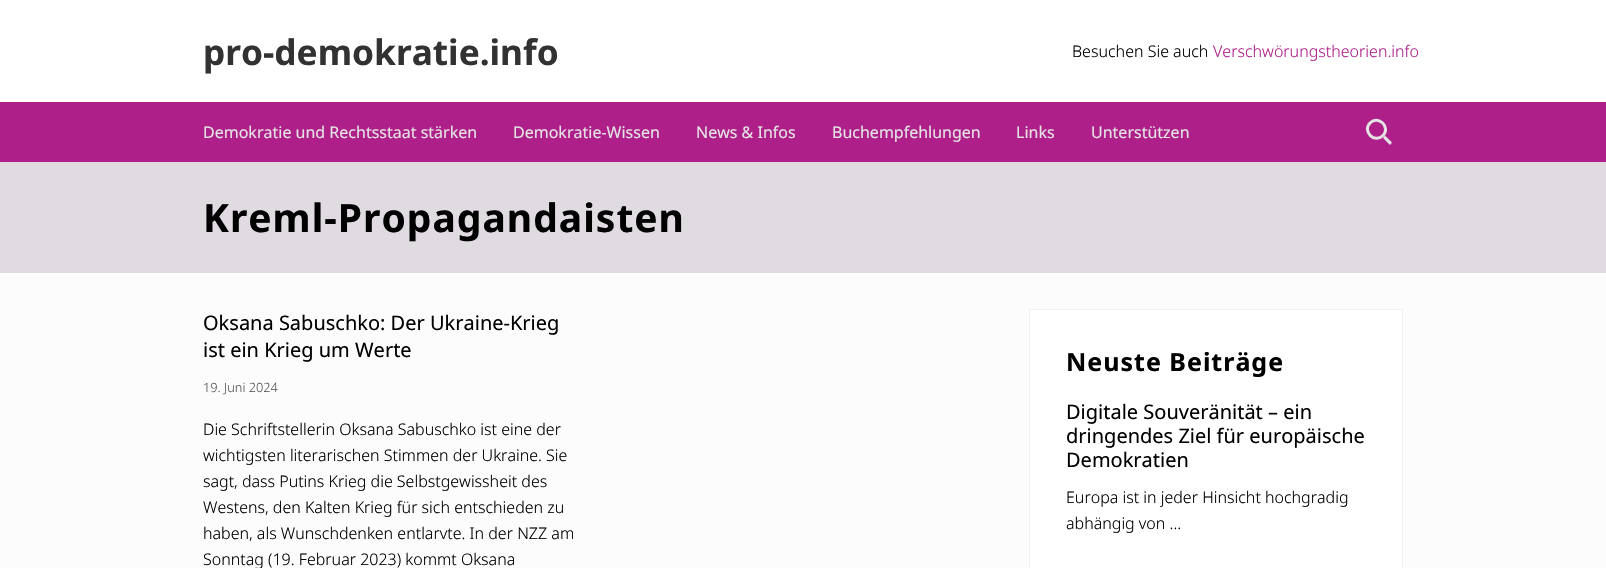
void draw(SkCanvas* canvas) {
    SkPaint paint;
    paint.setAntiAlias(true);
    auto spacedText = [&](const char* s, float x, float y, const SkFont& font, const SkPaint& ink, float letter, float word) {
        std::vector<SkGlyphID> glyphs(font.countText(s, strlen(s), SkTextEncoding::kUTF8));
        std::vector<float> xs(glyphs.size());
        font.textToGlyphs(s, strlen(s), SkTextEncoding::kUTF8, glyphs);
        font.getXPos(glyphs, xs, x);
        float extra = 0;
        for (size_t i = 0; i < glyphs.size(); i++) {
            xs[i] += extra;
            extra += letter + word * (glyphs[i] == font.unicharToGlyph(' '));
        }
        canvas->drawTextBlob(SkTextBlob::MakeFromPosHGlyphs(glyphs, xs, y, font), 0, 0, ink);
    };
    canvas->clear(0xFFFCFCFC);
    paint.setColor(0xFFFFFFFF);
    canvas->drawRect(SkRect::MakeXYWH(0, 0, 1606, 102), paint);
    SkFont font1(fontMgr->matchFamilyStyle("Noto Sans", SkFontStyle::Bold()), 35.25f);
    font1.setSubpixel(true);
    paint.setColor(0xFF323232);
    canvas->drawString("pro-demokratie.info", 203, 65, font1, paint);
    SkFont font2(fontMgr->matchFamilyStyle("Noto Sans", SkFontStyle(300, SkFontStyle::kNormal_Width, SkFontStyle::kUpright_Slant)), 16);
    font2.setSubpixel(true);
    paint.setColor(0xFF000000);
    canvas->drawString("Besuchen Sie auch", 1072, 57, font2, paint);
    paint.setColor(0xFFAF1F89);
    canvas->drawString("Verschwörungstheorien.info", 1213, 57, font2, paint);
    canvas->drawRect(SkRect::MakeXYWH(0, 102, 1606, 60), paint);
    SkFont font3(fontMgr->matchFamilyStyle("Noto Sans", SkFontStyle::Normal()), 16);
    font3.setSubpixel(true);
    paint.setColor(0xFFE4E4E4);
    canvas->drawString("Demokratie und Rechtsstaat stärken", 203, 138, font3, paint);
    canvas->drawString("Demokratie-Wissen", 513, 138, font3, paint);
    canvas->drawString("News & Infos", 696, 138, font3, paint);
    canvas->drawString("Buchempfehlungen", 832, 138, font3, paint);
    canvas->drawString("Links", 1016, 138, font3, paint);
    canvas->drawString("Unterstützen", 1091, 138, font3, paint);
    paint.setStyle(SkPaint::kStroke_Style);
    paint.setStrokeWidth(3);
    canvas->drawPath(SkPathBuilder().moveTo(1370, 123).cubicTo(1378.5f, 114.5f, 1391, 127.5f, 1383, 135.5f).cubicTo(1374.5f, 144, 1362, 131.5f, 1370, 123).close().detach(), paint);
    paint.setStyle(SkPaint::kFill_Style);
    canvas->drawPath(SkPathBuilder().moveTo(1383, 138).lineTo(1385, 135.5f).lineTo(1392, 142.5f).lineTo(1390, 145).close().detach(), paint);
    paint.setColor(0xFFDFDBE1);
    canvas->drawRect(SkRect::MakeXYWH(0, 162, 1606, 111), paint);
    SkFont font4(fontMgr->matchFamilyStyle("Noto Sans", SkFontStyle::Bold()), 39);
    font4.setSubpixel(true);
    paint.setColor(0xFF000000);
    spacedText("Kreml-Propagandaisten", 203, 232, font4, paint, 1, 0);
    SkFont font5(fontMgr->matchFamilyStyle("Noto Sans", SkFontStyle::Normal()), 20);
    font5.setSubpixel(true);
    canvas->drawString("Oksana Sabuschko: Der Ukraine-Krieg", 203, 330, font5, paint);
    canvas->drawString("ist ein Krieg um Werte", 203, 357, font5, paint);
    SkFont font6(fontMgr->matchFamilyStyle("Noto Sans", SkFontStyle(300, SkFontStyle::kNormal_Width, SkFontStyle::kUpright_Slant)), 12.75f);
    font6.setSubpixel(true);
    paint.setColor(0xFF555555);
    canvas->drawString("19. Juni 2024", 203, 392, font6, paint);
    paint.setColor(0xFF000000);
    canvas->drawString("Die Schriftstellerin Oksana Sabuschko ist eine der", 203, 435, font2, paint);
    canvas->drawString("wichtigsten literarischen Stimmen der Ukraine. Sie", 203, 461, font2, paint);
    canvas->drawString("sagt, dass Putins Krieg die Selbstgewissheit des", 203, 487, font2, paint);
    canvas->drawString("Westens, den Kalten Krieg für sich entschieden zu", 203, 513, font2, paint);
    canvas->drawString("haben, als Wunschdenken entlarvte. In der NZZ am", 203, 539, font2, paint);
    canvas->drawString("Sonntag (19. Februar 2023) kommt Oksana", 203, 565, font2, paint);
    paint.setColor(0xFFFFFFFF);
    canvas->drawRect(SkRect::MakeXYWH(1029.5f, 309.5f, 373, 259), paint);
    paint.setStyle(SkPaint::kStroke_Style);
    paint.setStrokeWidth(1);
    paint.setColor(0xFFF0F0F0);
    canvas->drawRect(SkRect::MakeXYWH(1029.5f, 309.5f, 373, 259), paint);
    SkFont font7(fontMgr->matchFamilyStyle("Noto Sans", SkFontStyle::Bold()), 25);
    font7.setSubpixel(true);
    paint.setStyle(SkPaint::kFill_Style);
    paint.setColor(0xFF000000);
    spacedText("Neuste Beiträge", 1066, 371, font7, paint, 1, 0);
    canvas->drawString("Digitale Souveränität – ein", 1066, 419, font5, paint);
    canvas->drawString("dringendes Ziel für europäische", 1066, 443, font5, paint);
    canvas->drawString("Demokratien", 1066, 467, font5, paint);
    canvas->drawString("Europa ist in jeder Hinsicht hochgradig", 1066, 503, font2, paint);
    canvas->drawString("abhängig von …", 1066, 529, font2, paint);
}
